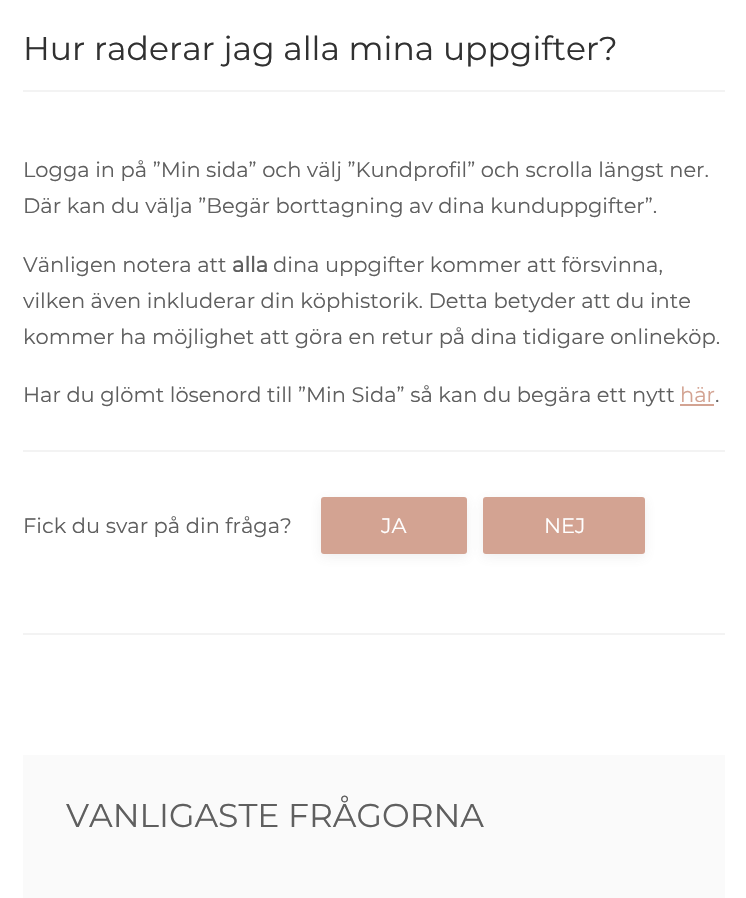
void draw(SkCanvas* canvas) {
    SkPaint paint;
    paint.setAntiAlias(true);
    canvas->clear(0xFFFFFFFF);
    paint.setColor(0xFFF3F3F3);
    canvas->drawRect(SkRect::MakeXYWH(23, 90, 702, 2), paint);
    SkFont font1(fontMgr->matchFamilyStyle("Montserrat", SkFontStyle(100, SkFontStyle::kNormal_Width, SkFontStyle::kUpright_Slant)), 33);
    font1.setSubpixel(true);
    paint.setColor(0xFF313131);
    canvas->drawString("Hur raderar jag alla mina uppgifter?", 23, 60, font1, paint);
    paint.setColor(0xFFF3F3F3);
    canvas->drawRect(SkRect::MakeXYWH(23, 450, 702, 2), paint);
    SkFont font2(fontMgr->matchFamilyStyle("Montserrat", SkFontStyle(100, SkFontStyle::kNormal_Width, SkFontStyle::kUpright_Slant)), 21);
    font2.setSubpixel(true);
    paint.setColor(0xFF5F5F5F);
    canvas->drawString("Logga in på ”Min sida” och välj ”Kundprofil” och scrolla längst ner.", 23, 177, font2, paint);
    canvas->drawString("Där kan du välja ”Begär borttagning av dina kunduppgifter”.", 23, 213, font2, paint);
    canvas->drawString("Vänligen notera att", 23, 272, font2, paint);
    SkFont font3(fontMgr->matchFamilyStyle("Montserrat", SkFontStyle::Bold()), 21);
    font3.setSubpixel(true);
    canvas->drawString("alla", 232, 272, font3, paint);
    canvas->drawString("dina uppgifter kommer att försvinna,", 273, 272, font2, paint);
    canvas->drawString("vilken även inkluderar din köphistorik. Detta betyder att du inte", 23, 308, font2, paint);
    canvas->drawString("kommer ha möjlighet att göra en retur på dina tidigare onlineköp.", 23, 344, font2, paint);
    canvas->drawString("Har du glömt lösenord till ”Min Sida” så kan du begära ett nytt", 23, 402, font2, paint);
    paint.setColor(0xFFD3A392);
    canvas->drawString("här", 680, 402, font2, paint);
    canvas->drawRect(SkRect::MakeXYWH(680, 404, 34, 2), paint);
    paint.setColor(0xFF5F5F5F);
    canvas->drawString(".", 715, 402, font2, paint);
    paint.setColor(0xFFF3F3F3);
    canvas->drawRect(SkRect::MakeXYWH(23, 633, 702, 2), paint);
    paint.setColor(0xFF5F5F5F);
    canvas->drawString("Fick du svar på din fråga?", 23, 533, font2, paint);
    paint.setColor(0x1A626262);
    paint.setMaskFilter(SkMaskFilter::MakeBlur(kNormal_SkBlurStyle, 6));
    canvas->drawRoundRect(SkRect::MakeXYWH(321, 500, 146, 57), 3, 3, paint);
    paint.setMaskFilter(nullptr);
    paint.setColor(0xFFD3A392);
    canvas->drawRoundRect(SkRect::MakeXYWH(321, 497, 146, 57), 3, 3, paint);
    paint.setColor(0xFFFFFFFF);
    canvas->drawString("JA", 381, 533, font2, paint);
    paint.setColor(0x1A626262);
    paint.setMaskFilter(SkMaskFilter::MakeBlur(kNormal_SkBlurStyle, 6));
    canvas->drawRoundRect(SkRect::MakeXYWH(483, 500, 162, 57), 3, 3, paint);
    paint.setMaskFilter(nullptr);
    paint.setColor(0xFFD3A392);
    canvas->drawRoundRect(SkRect::MakeXYWH(483, 497, 162, 57), 3, 3, paint);
    paint.setColor(0xFFFFFFFF);
    canvas->drawString("NEJ", 544, 533, font2, paint);
    paint.setColor(0xFFFAFAFA);
    canvas->drawRect(SkRect::MakeXYWH(23, 755, 702, 143), paint);
    paint.setColor(0xFF5F5F5F);
    canvas->drawString("VANLIGASTE FRÅGORNA", 66, 827, font1, paint);
}
